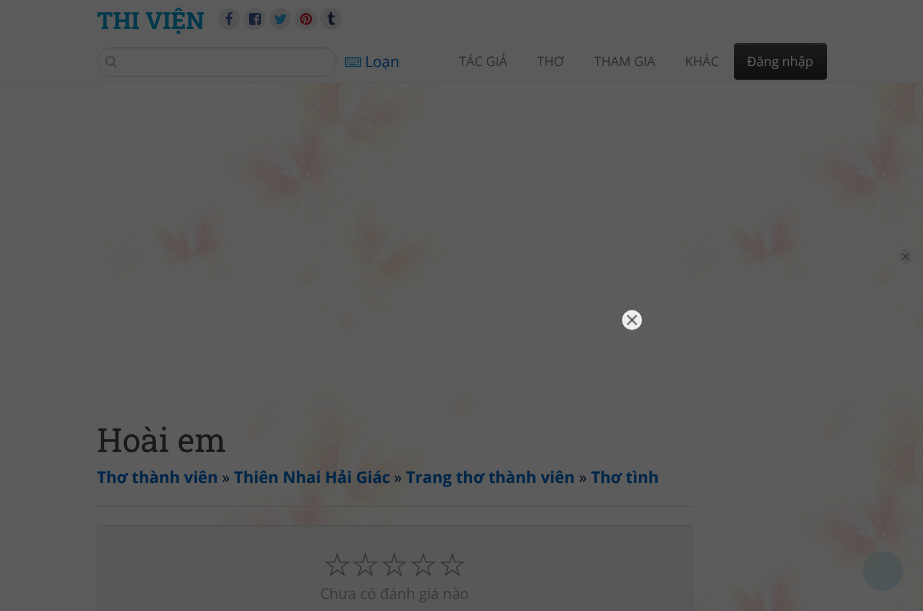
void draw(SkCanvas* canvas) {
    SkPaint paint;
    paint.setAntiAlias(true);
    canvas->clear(0xFF5B5B5B);
    canvas->drawImageRect(SkImages::DeferredFromEncodedData(SkData::MakeFromFileName("img1.png")), SkRect::MakeXYWH(105, 83, 818, 528), SkSamplingOptions());
    paint.setColor(0xFF565656);
    canvas->drawRect(SkRect::MakeXYWH(0, 82, 923, 1), paint);
    SkFont font1(fontMgr->matchFamilyStyle("Roboto Slab", SkFontStyle::Bold()), 23.5f);
    font1.setSubpixel(true);
    paint.setColor(0xFF01374A);
    canvas->drawString("THI VIỆN", 97, 29, font1, paint);
    paint.setColor(0xFF535353);
    canvas->drawCircle(229, 19, 11, paint);
    canvas->drawImageRect(SkImages::DeferredFromEncodedData(SkData::MakeFromFileName("img2.png")), SkRect::MakeXYWH(225, 12, 8, 13), SkSamplingOptions());
    canvas->drawCircle(255, 19, 11, paint);
    canvas->drawImageRect(SkImages::DeferredFromEncodedData(SkData::MakeFromFileName("img3.png")), SkRect::MakeXYWH(249, 13, 12, 12), SkSamplingOptions());
    canvas->drawCircle(280, 19, 11, paint);
    canvas->drawImageRect(SkImages::DeferredFromEncodedData(SkData::MakeFromFileName("img4.png")), SkRect::MakeXYWH(274, 14, 13, 10), SkSamplingOptions());
    canvas->drawCircle(306, 19, 11, paint);
    canvas->drawImageRect(SkImages::DeferredFromEncodedData(SkData::MakeFromFileName("img5.png")), SkRect::MakeXYWH(300, 13, 12, 12), SkSamplingOptions());
    canvas->drawCircle(331, 19, 11, paint);
    canvas->drawImageRect(SkImages::DeferredFromEncodedData(SkData::MakeFromFileName("img6.png")), SkRect::MakeXYWH(327, 12, 8, 13), SkSamplingOptions());
    paint.setColor(0xFF555555);
    canvas->drawPath(SkPathBuilder().moveTo(112, 49).lineTo(322, 49).cubicTo(330, 49, 336, 55, 336, 62).cubicTo(336, 55, 330, 48, 322, 48).lineTo(112, 48).cubicTo(104, 48, 98, 55, 98, 62).cubicTo(98, 55, 104, 49, 112, 49).close().detach(), paint);
    paint.setStyle(SkPaint::kStroke_Style);
    paint.setStrokeWidth(1);
    paint.setColor(0xFF505050);
    canvas->drawRoundRect(SkRect::MakeXYWH(97.5f, 47.5f, 239, 29), 14.5f, 14.5f, paint);
    canvas->drawImageRect(SkImages::DeferredFromEncodedData(SkData::MakeFromFileName("img7.png")), SkRect::MakeXYWH(105, 55, 12, 13), SkSamplingOptions());
    canvas->drawImageRect(SkImages::DeferredFromEncodedData(SkData::MakeFromFileName("img8.png")), SkRect::MakeXYWH(345, 57, 17, 10), SkSamplingOptions());
    SkFont font2(fontMgr->matchFamilyStyle("Open Sans", SkFontStyle::Normal()), 15);
    font2.setSubpixel(true);
    paint.setStyle(SkPaint::kFill_Style);
    paint.setColor(0xFF002549);
    canvas->drawString("Loạn", 365, 67, font2, paint);
    SkFont font3(fontMgr->matchFamilyStyle("Open Sans", SkFontStyle::Normal()), 13);
    font3.setSubpixel(true);
    paint.setColor(0xFF2E2E2E);
    canvas->drawString("TÁC GIẢ", 459, 66, font3, paint);
    canvas->drawString("THƠ", 537, 66, font3, paint);
    canvas->drawString("THAM GIA", 594, 66, font3, paint);
    canvas->drawString("KHÁC", 685, 66, font3, paint);
    paint.setColor(0xFF1A1A1A);
    canvas->drawRoundRect(SkRect::MakeXYWH(734, 43, 93, 37), 4, 4, paint);
    canvas->save();
    canvas->clipPath(SkPathBuilder().moveTo(738, 43).lineTo(823, 43).cubicTo(825, 43, 827, 45, 827, 47).lineTo(827, 76).cubicTo(827, 78, 825, 80, 823, 80).lineTo(738, 80).cubicTo(736, 80, 734, 78, 734, 76).lineTo(734, 47).cubicTo(734, 45, 736, 43, 738, 43).close().detach(), true);
    {
        const SkColor colors[] = {0xFF1A1A1A, 0xFF0F0F0F};
        const float stops[] = {0, 1};
        const SkPoint ends[] = {{781, 44}, {781, 79}};
        paint.setShader(SkGradientShader::MakeLinear(ends, colors, stops, 2, SkTileMode::kClamp));
        paint.setAlpha(255);
    }
    canvas->drawRect(SkRect::MakeXYWH(734, 44, 93, 35), paint);
    canvas->restore();
    paint.setShader(nullptr);
    paint.setColor(0xFF232424);
    canvas->drawPath(SkPathBuilder().moveTo(738, 45).lineTo(823, 45).cubicTo(825, 45, 826, 46, 826, 48).cubicTo(826, 40, 812, 44, 809, 44).lineTo(752, 44).cubicTo(749, 44, 735, 40, 735, 48).cubicTo(735, 46, 736, 45, 738, 45).close().detach(), paint);
    paint.setColor(0xFF5C5C5C);
    canvas->drawString("Đăng nhập", 747, 66, font3, paint);
    paint.setColor(0x2601374A);
    canvas->drawCircle(883, 571, 20, paint);
    canvas->drawImageRect(SkImages::DeferredFromEncodedData(SkData::MakeFromFileName("img9.png")), SkRect::MakeXYWH(872, 566, 21, 12), SkSamplingOptions());
    paint.setColor(0xFF565656);
    canvas->drawCircle(905.5f, 256.5f, 7.5f, paint);
    canvas->drawImageRect(SkImages::DeferredFromEncodedData(SkData::MakeFromFileName("img10.png")), SkRect::MakeXYWH(902, 253, 7, 7), SkSamplingOptions());
    paint.setColor(0xFFEFEFEF);
    canvas->drawCircle(632, 320, 8.5f, paint);
    paint.setStyle(SkPaint::kStroke_Style);
    paint.setStrokeWidth(3);
    canvas->drawCircle(632, 320, 8.5f, paint);
    canvas->drawImageRect(SkImages::DeferredFromEncodedData(SkData::MakeFromFileName("img11.png")), SkRect::MakeXYWH(627, 315, 10, 10), SkSamplingOptions());
    paint.setStyle(SkPaint::kFill_Style);
    paint.setColor(0xFF505050);
    canvas->drawRect(SkRect::MakeXYWH(97, 506, 596, 1), paint);
    SkFont font4(fontMgr->matchFamilyStyle("Roboto Slab", SkFontStyle::Normal()), 33);
    font4.setSubpixel(true);
    paint.setColor(0xFF191919);
    canvas->drawString("Hoài em", 97, 452, font4, paint);
    SkFont font5(fontMgr->matchFamilyStyle("Open Sans", SkFontStyle::Bold()), 16);
    font5.setSubpixel(true);
    paint.setColor(0xFF002549);
    canvas->drawString("Thơ thành viên", 97, 483, font5, paint);
    SkFont font6(fontMgr->matchFamilyStyle("Open Sans", SkFontStyle::Normal()), 16);
    font6.setSubpixel(true);
    paint.setColor(0xFF000E1C);
    canvas->drawString("»", 222, 483, font6, paint);
    paint.setColor(0xFF002549);
    canvas->drawString("Thiên Nhai Hải Giác", 234, 483, font5, paint);
    paint.setColor(0xFF000E1C);
    canvas->drawString("»", 394, 483, font6, paint);
    paint.setColor(0xFF002549);
    canvas->drawString("Trang thơ thành viên", 406, 483, font5, paint);
    paint.setColor(0xFF000E1C);
    canvas->drawString("»", 579, 483, font6, paint);
    paint.setColor(0xFF002549);
    canvas->drawString("Thơ tình", 591, 483, font5, paint);
    paint.setColor(0xFF585858);
    canvas->drawRoundRect(SkRect::MakeXYWH(97, 525, 596, 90), 4, 4, paint);
    paint.setColor(0xFF535353);
    canvas->drawPath(SkPathBuilder().moveTo(101, 527).lineTo(689, 527).cubicTo(691, 527, 692, 528, 692, 530).lineTo(692, 529).cubicTo(692, 527, 691, 526, 689, 526).lineTo(101, 526).cubicTo(99, 526, 98, 527, 98, 529).lineTo(98, 530).cubicTo(98, 528, 99, 527, 101, 527).close().detach(), paint);
    paint.setStyle(SkPaint::kStroke_Style);
    paint.setStrokeWidth(1);
    paint.setColor(0xFF525252);
    canvas->drawRoundRect(SkRect::MakeXYWH(97.5f, 525.5f, 595, 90), 3.5f, 3.5f, paint);
    SkFont font7(fontMgr->matchFamilyStyle("DejaVu Sans", SkFontStyle::Normal()), 32);
    font7.setSubpixel(true);
    paint.setStyle(SkPaint::kFill_Style);
    paint.setColor(0xFF2E2E2E);
    canvas->drawString("☆", 323, 576, font7, paint);
    canvas->drawString("☆", 351, 576, font7, paint);
    canvas->drawString("☆", 380, 576, font7, paint);
    canvas->drawString("☆", 409, 576, font7, paint);
    canvas->drawString("☆", 438, 576, font7, paint);
    SkFont font8(fontMgr->matchFamilyStyle("Open Sans", SkFontStyle::Normal()), 14.75f);
    font8.setSubpixel(true);
    paint.setColor(0xFF3A3A3A);
    canvas->drawString("Chưa có đánh giá nào", 320, 599, font8, paint);
}
